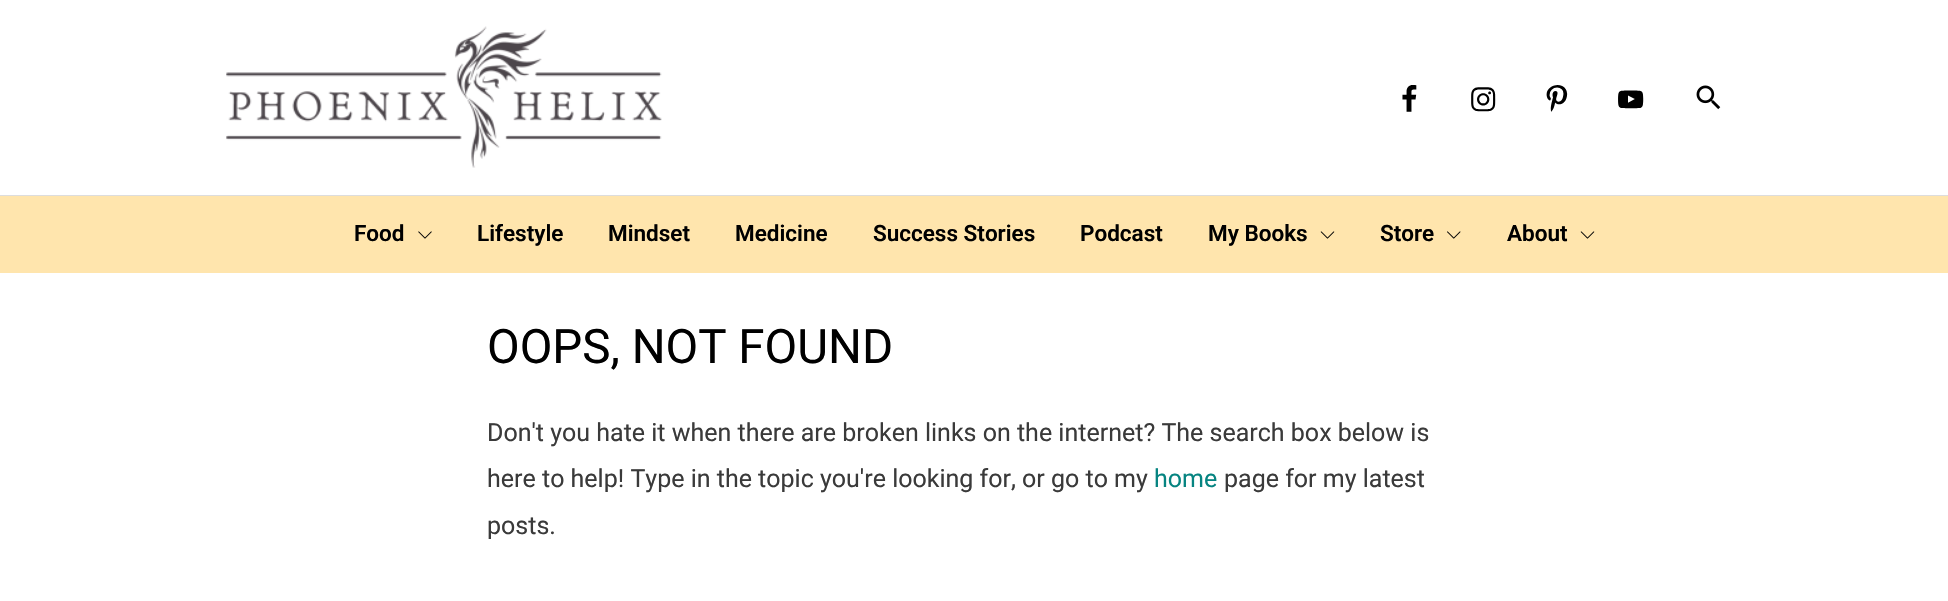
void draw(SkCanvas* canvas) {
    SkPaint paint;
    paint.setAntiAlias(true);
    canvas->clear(0xFFFFFFFF);
    paint.setColor(0xFFDDDDDD);
    canvas->drawRect(SkRect::MakeXYWH(0, 195, 1948, 1), paint);
    canvas->drawImageRect(SkImages::DeferredFromEncodedData(SkData::MakeFromFileName("img1.png")), SkRect::MakeXYWH(226, 26, 436, 142), SkSamplingOptions());
    canvas->drawImageRect(SkImages::DeferredFromEncodedData(SkData::MakeFromFileName("img2.png")), SkRect::MakeXYWH(1402, 85, 15, 27), SkSamplingOptions());
    canvas->drawImageRect(SkImages::DeferredFromEncodedData(SkData::MakeFromFileName("img3.png")), SkRect::MakeXYWH(1471, 87, 25, 25), SkSamplingOptions());
    canvas->drawImageRect(SkImages::DeferredFromEncodedData(SkData::MakeFromFileName("img4.png")), SkRect::MakeXYWH(1546, 85, 22, 27), SkSamplingOptions());
    canvas->drawImageRect(SkImages::DeferredFromEncodedData(SkData::MakeFromFileName("img5.png")), SkRect::MakeXYWH(1618, 90, 26, 19), SkSamplingOptions());
    canvas->drawImageRect(SkImages::DeferredFromEncodedData(SkData::MakeFromFileName("img6.png")), SkRect::MakeXYWH(1696, 85, 25, 25), SkSamplingOptions());
    paint.setColor(0xFFFFE5AD);
    canvas->drawRect(SkRect::MakeXYWH(0, 196, 1948, 77), paint);
    SkFont font1(fontMgr->matchFamilyStyle("Roboto", SkFontStyle(600, SkFontStyle::kNormal_Width, SkFontStyle::kUpright_Slant)), 22.5f);
    font1.setSubpixel(true);
    paint.setColor(0xFF000000);
    canvas->drawString("Food", 354, 241, font1, paint);
    canvas->drawImageRect(SkImages::DeferredFromEncodedData(SkData::MakeFromFileName("img7.png")), SkRect::MakeXYWH(418, 231, 14, 8), SkSamplingOptions());
    canvas->drawString("Lifestyle", 477, 241, font1, paint);
    canvas->drawString("Mindset", 608, 241, font1, paint);
    canvas->drawString("Medicine", 735, 241, font1, paint);
    canvas->drawString("Success Stories", 873, 241, font1, paint);
    canvas->drawString("Podcast", 1080, 241, font1, paint);
    canvas->drawString("My Books", 1208, 241, font1, paint);
    canvas->drawImageRect(SkImages::DeferredFromEncodedData(SkData::MakeFromFileName("img8.png")), SkRect::MakeXYWH(1320, 231, 15, 8), SkSamplingOptions());
    canvas->drawString("Store", 1380, 241, font1, paint);
    canvas->drawImageRect(SkImages::DeferredFromEncodedData(SkData::MakeFromFileName("img9.png")), SkRect::MakeXYWH(1447, 231, 14, 8), SkSamplingOptions());
    canvas->drawString("About", 1507, 241, font1, paint);
    canvas->drawImageRect(SkImages::DeferredFromEncodedData(SkData::MakeFromFileName("img8.png")), SkRect::MakeXYWH(1580, 231, 15, 8), SkSamplingOptions());
    SkFont font2(fontMgr->matchFamilyStyle("Roboto", SkFontStyle::Normal()), 47.5f);
    font2.setSubpixel(true);
    canvas->drawString("OOPS, NOT FOUND", 487, 363, font2, paint);
    SkFont font3(fontMgr->matchFamilyStyle("Roboto", SkFontStyle::Normal()), 25);
    font3.setSubpixel(true);
    paint.setColor(0xFF3A3A3A);
    canvas->drawString("Don't you hate it when there are broken links on the internet? The search box below is", 487, 441, font3, paint);
    canvas->drawString("here to help! Type in the topic you're looking for, or go to my", 487, 487, font3, paint);
    paint.setColor(0xFF068481);
    canvas->drawString("home", 1154, 487, font3, paint);
    paint.setColor(0xFF3A3A3A);
    canvas->drawString("page for my latest", 1224, 487, font3, paint);
    canvas->drawString("posts.", 487, 534, font3, paint);
}
